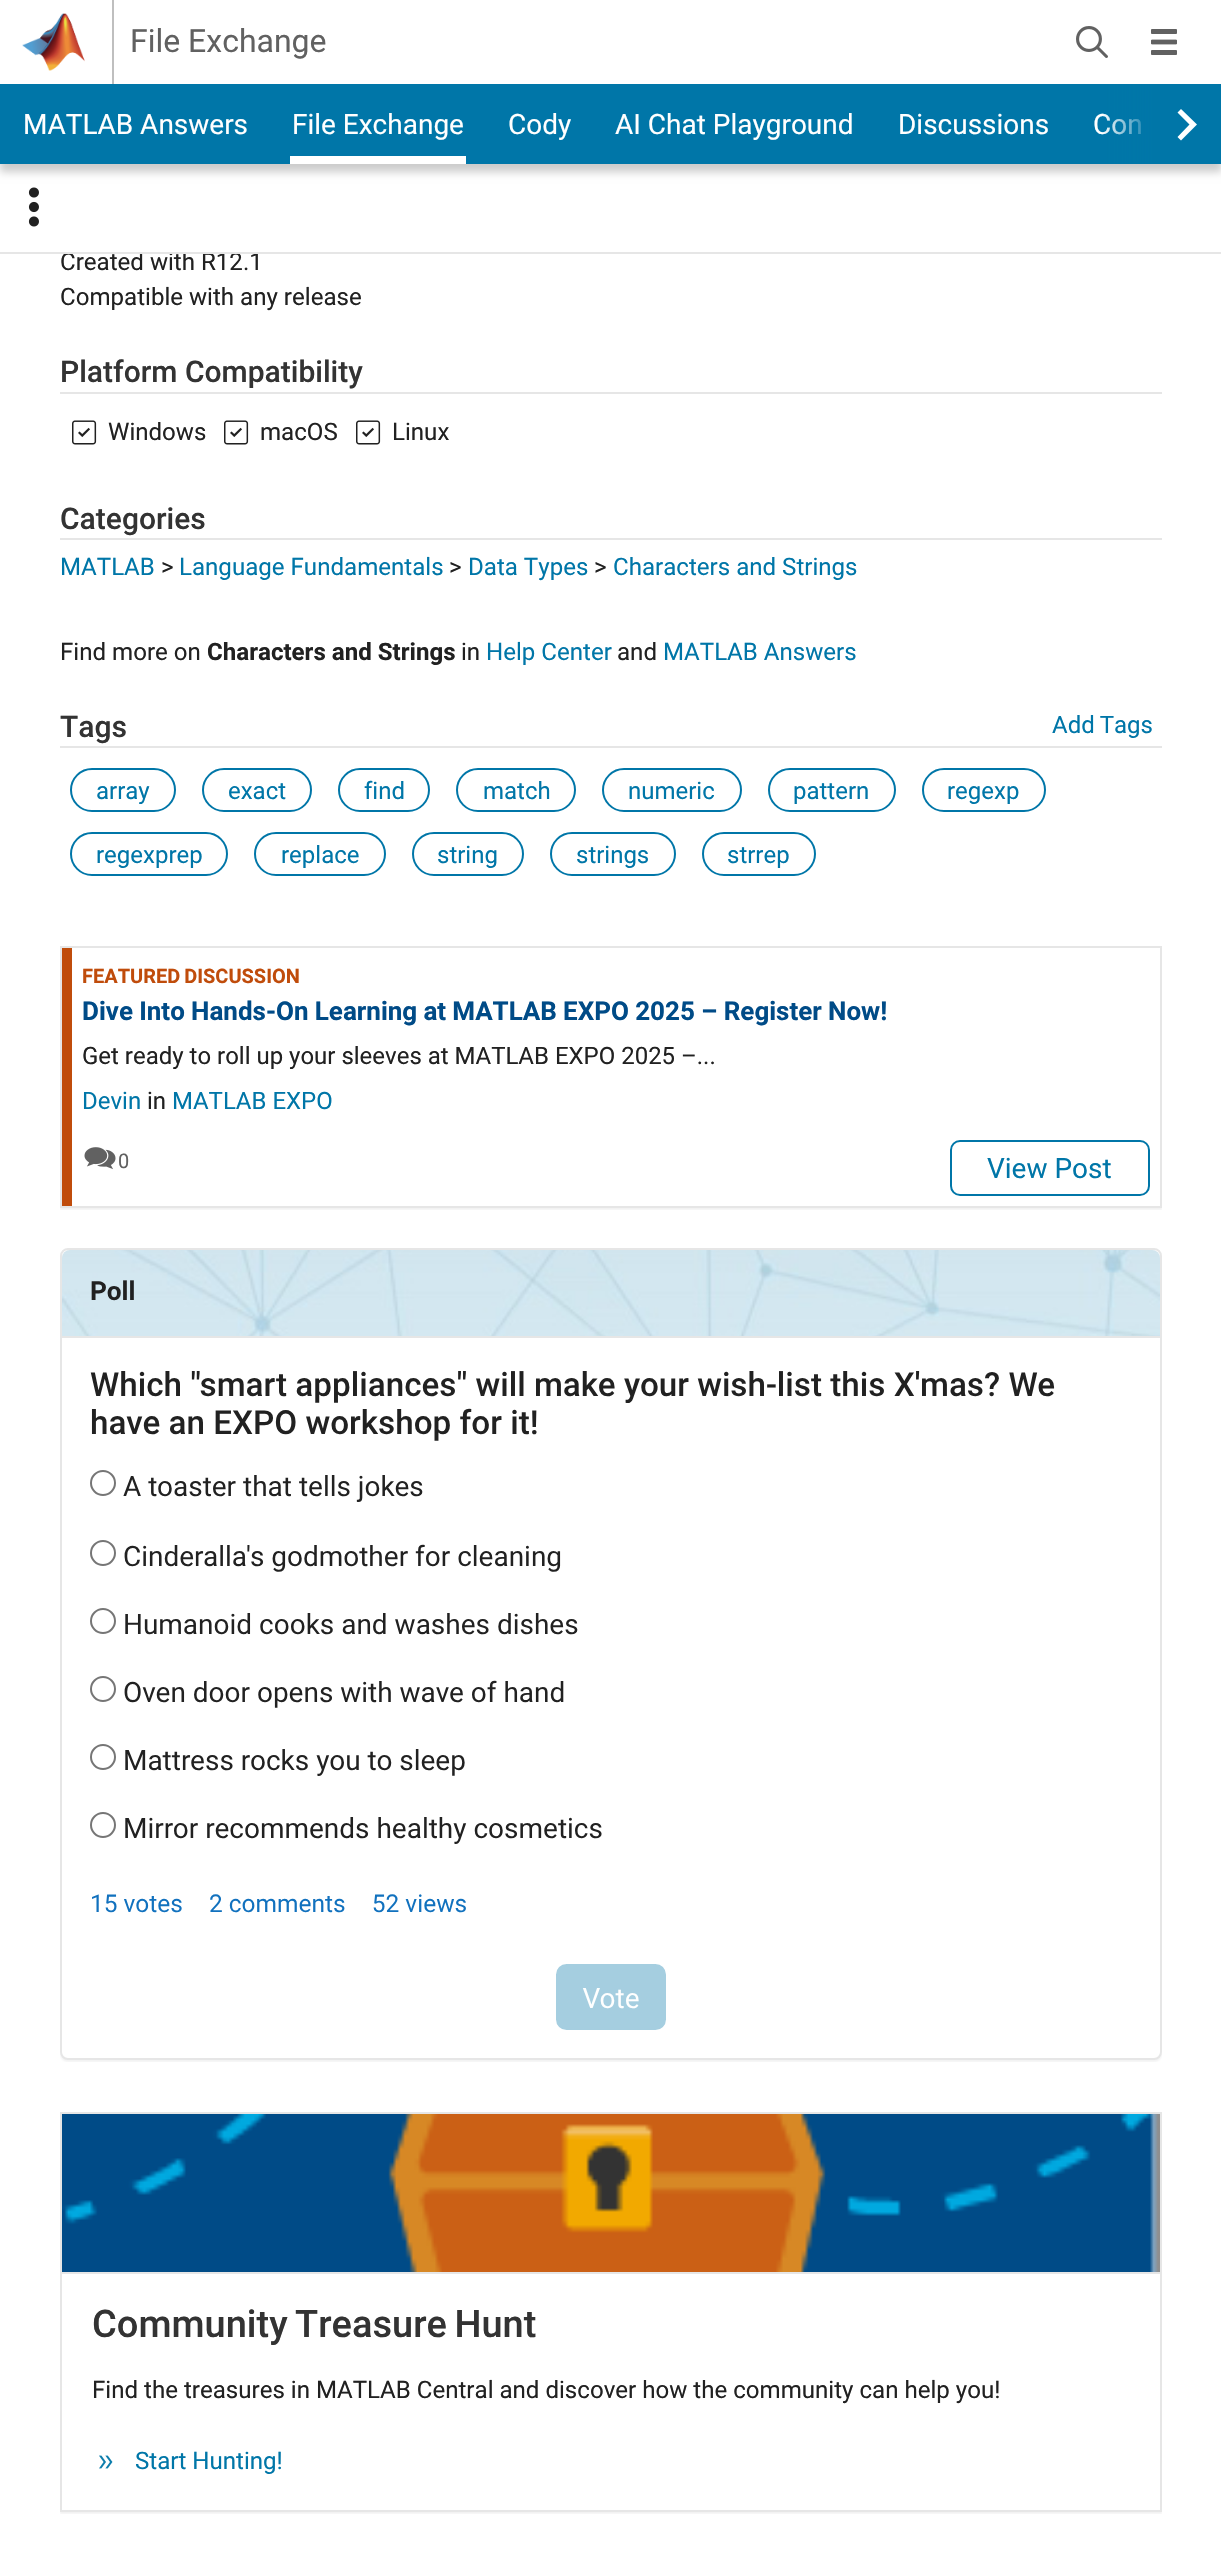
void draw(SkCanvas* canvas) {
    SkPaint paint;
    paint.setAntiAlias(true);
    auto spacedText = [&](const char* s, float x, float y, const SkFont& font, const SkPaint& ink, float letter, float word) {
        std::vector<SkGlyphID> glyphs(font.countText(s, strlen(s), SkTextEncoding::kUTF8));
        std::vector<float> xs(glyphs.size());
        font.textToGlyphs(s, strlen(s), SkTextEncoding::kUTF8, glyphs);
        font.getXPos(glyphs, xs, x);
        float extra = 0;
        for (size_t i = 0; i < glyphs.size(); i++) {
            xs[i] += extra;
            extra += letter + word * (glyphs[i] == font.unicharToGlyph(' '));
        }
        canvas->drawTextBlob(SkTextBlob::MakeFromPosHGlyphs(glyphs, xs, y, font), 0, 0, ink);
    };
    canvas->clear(0xFFFFFFFF);
    paint.setColor(0xFFBFBFBF);
    canvas->drawRect(SkRect::MakeXYWH(112, 0, 2, 84), paint);
    canvas->drawImageRect(SkImages::DeferredFromEncodedData(SkData::MakeFromFileName("img1.png")), SkRect::MakeXYWH(22, 13, 63, 58), SkSamplingOptions());
    SkFont font1(fontMgr->matchFamilyStyle("Roboto", SkFontStyle::Normal()), 32);
    font1.setSubpixel(true);
    paint.setColor(0xFF616161);
    canvas->drawString("File Exchange", 130, 52, font1, paint);
    canvas->drawImageRect(SkImages::DeferredFromEncodedData(SkData::MakeFromFileName("img2.png")), SkRect::MakeXYWH(1076, 26, 32, 32), SkSamplingOptions());
    canvas->drawImageRect(SkImages::DeferredFromEncodedData(SkData::MakeFromFileName("img3.png")), SkRect::MakeXYWH(1151, 29, 26, 26), SkSamplingOptions());
    paint.setColor(0x33000000);
    paint.setMaskFilter(SkMaskFilter::MakeBlur(kNormal_SkBlurStyle, 4));
    canvas->drawRect(SkRect::MakeXYWH(0, 92, 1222, 80), paint);
    paint.setMaskFilter(nullptr);
    paint.setColor(0xFF0076A8);
    canvas->drawRect(SkRect::MakeXYWH(0, 84, 1152, 80), paint);
    SkFont font2(fontMgr->matchFamilyStyle("Roboto", SkFontStyle::Normal()), 28);
    font2.setSubpixel(true);
    paint.setColor(0xFFFFFFFF);
    canvas->drawString("MATLAB Answers", 23, 134, font2, paint);
    canvas->drawRect(SkRect::MakeXYWH(290, 156, 176, 8), paint);
    canvas->drawString("File Exchange", 292, 134, font2, paint);
    canvas->drawString("Cody", 508, 134, font2, paint);
    canvas->drawString("AI Chat Playground", 615, 134, font2, paint);
    canvas->drawString("Discussions", 898, 134, font2, paint);
    canvas->drawString("Con", 1093, 134, font2, paint);
    {
        const SkColor colors[] = {0x000076A8, 0xFF0076A8, 0xFF0076A8};
        const float stops[] = {0, 0.5f, 1};
        const SkPoint ends[] = {{1102, 124}, {1202, 124}};
        paint.setShader(SkGradientShader::MakeLinear(ends, colors, stops, 3, SkTileMode::kClamp));
        paint.setAlpha(255);
    }
    canvas->drawRect(SkRect::MakeXYWH(1103, 84, 95, 80), paint);
    paint.setShader(nullptr);
    paint.setColor(0xFFFFFFFF);
    canvas->drawPath(SkPathBuilder().moveTo(1181, 109).lineTo(1177.5f, 112.5f).lineTo(1189.5f, 124.5f).lineTo(1177.5f, 137).lineTo(1181, 140.5f).lineTo(1197, 124.5f).close().detach(), paint);
    paint.setColor(0xFF0076A8);
    canvas->drawRect(SkRect::MakeXYWH(1198, 84, 23, 80), paint);
    SkFont font3(fontMgr->matchFamilyStyle("Roboto", SkFontStyle::Normal()), 24.1f);
    font3.setSubpixel(true);
    paint.setColor(0xFF212121);
    canvas->drawString("Created with R12.1", 60, 270, font3, paint);
    paint.setColor(0xFFFFFFFF);
    canvas->drawRect(SkRect::MakeXYWH(140, 251, 46, 1), paint);
    paint.setColor(0xFFE6E6E6);
    canvas->drawRect(SkRect::MakeXYWH(0, 252, 1221, 2), paint);
    canvas->drawImageRect(SkImages::DeferredFromEncodedData(SkData::MakeFromFileName("img4.png")), SkRect::MakeXYWH(28, 187, 11, 40), SkSamplingOptions());
    paint.setColor(0xFF212121);
    canvas->drawString("Compatible with any release", 60, 305, font3, paint);
    paint.setColor(0xFFE6E6E6);
    canvas->drawRect(SkRect::MakeXYWH(60, 392, 1102, 2), paint);
    SkFont font4(fontMgr->matchFamilyStyle("Roboto", SkFontStyle(500, SkFontStyle::kNormal_Width, SkFontStyle::kUpright_Slant)), 30);
    font4.setSubpixel(true);
    paint.setColor(0xFF333333);
    canvas->drawString("Platform Compatibility", 60, 382, font4, paint);
    canvas->drawImageRect(SkImages::DeferredFromEncodedData(SkData::MakeFromFileName("img5.png")), SkRect::MakeXYWH(72, 420, 25, 25), SkSamplingOptions());
    paint.setColor(0xFF212121);
    canvas->drawString("Windows", 108, 440, font3, paint);
    canvas->drawImageRect(SkImages::DeferredFromEncodedData(SkData::MakeFromFileName("img5.png")), SkRect::MakeXYWH(224, 420, 25, 25), SkSamplingOptions());
    canvas->drawString("macOS", 260, 440, font3, paint);
    canvas->drawImageRect(SkImages::DeferredFromEncodedData(SkData::MakeFromFileName("img5.png")), SkRect::MakeXYWH(356, 420, 25, 25), SkSamplingOptions());
    canvas->drawString("Linux", 392, 440, font3, paint);
    paint.setColor(0xFFE6E6E6);
    canvas->drawRect(SkRect::MakeXYWH(60, 538, 1102, 2), paint);
    paint.setColor(0xFF333333);
    canvas->drawString("Categories", 60, 529, font4, paint);
    paint.setColor(0xFF0076A8);
    canvas->drawString("MATLAB", 60, 575, font3, paint);
    paint.setColor(0xFF212121);
    canvas->drawString(">", 161, 575, font3, paint);
    paint.setColor(0xFF0076A8);
    canvas->drawString("Language Fundamentals", 179, 575, font3, paint);
    paint.setColor(0xFF212121);
    canvas->drawString(">", 449, 575, font3, paint);
    paint.setColor(0xFF0076A8);
    canvas->drawString("Data Types", 468, 575, font3, paint);
    paint.setColor(0xFF212121);
    canvas->drawString(">", 594, 575, font3, paint);
    paint.setColor(0xFF0076A8);
    canvas->drawString("Characters and Strings", 613, 575, font3, paint);
    paint.setColor(0xFF212121);
    canvas->drawString("Find more on", 60, 660, font3, paint);
    SkFont font5(fontMgr->matchFamilyStyle("Roboto", SkFontStyle::Bold()), 24.1f);
    font5.setSubpixel(true);
    canvas->drawString("Characters and Strings", 207, 660, font5, paint);
    canvas->drawString("in", 461, 660, font3, paint);
    paint.setColor(0xFF0076A8);
    canvas->drawString("Help Center", 486, 660, font3, paint);
    paint.setColor(0xFF212121);
    canvas->drawString("and", 617, 660, font3, paint);
    paint.setColor(0xFF0076A8);
    canvas->drawString("MATLAB Answers", 663, 660, font3, paint);
    paint.setColor(0xFFE6E6E6);
    canvas->drawRect(SkRect::MakeXYWH(60, 746, 1102, 2), paint);
    paint.setColor(0xFF333333);
    canvas->drawString("Tags", 60, 737, font4, paint);
    SkFont font6(fontMgr->matchFamilyStyle("Roboto", SkFontStyle::Normal()), 24);
    font6.setSubpixel(true);
    paint.setColor(0xFF0076A8);
    spacedText("Add Tags", 1052, 733, font6, paint, 0, -1);
    paint.setStyle(SkPaint::kStroke_Style);
    paint.setStrokeWidth(2);
    canvas->drawRoundRect(SkRect::MakeXYWH(71, 769, 104, 42), 21, 21, paint);
    paint.setStyle(SkPaint::kFill_Style);
    canvas->drawString("array", 96, 799, font6, paint);
    paint.setStyle(SkPaint::kStroke_Style);
    canvas->drawRoundRect(SkRect::MakeXYWH(203, 769, 108, 42), 21, 21, paint);
    paint.setStyle(SkPaint::kFill_Style);
    canvas->drawString("exact", 228, 799, font6, paint);
    paint.setStyle(SkPaint::kStroke_Style);
    canvas->drawRoundRect(SkRect::MakeXYWH(339, 769, 90, 42), 21, 21, paint);
    paint.setStyle(SkPaint::kFill_Style);
    canvas->drawString("find", 364, 799, font6, paint);
    paint.setStyle(SkPaint::kStroke_Style);
    canvas->drawRoundRect(SkRect::MakeXYWH(457, 769, 118, 42), 21, 21, paint);
    paint.setStyle(SkPaint::kFill_Style);
    canvas->drawString("match", 483, 799, font6, paint);
    paint.setStyle(SkPaint::kStroke_Style);
    canvas->drawRoundRect(SkRect::MakeXYWH(603, 769, 138, 42), 21, 21, paint);
    paint.setStyle(SkPaint::kFill_Style);
    canvas->drawString("numeric", 628, 799, font6, paint);
    paint.setStyle(SkPaint::kStroke_Style);
    canvas->drawRoundRect(SkRect::MakeXYWH(769, 769, 126, 42), 21, 21, paint);
    paint.setStyle(SkPaint::kFill_Style);
    canvas->drawString("pattern", 793, 799, font6, paint);
    paint.setStyle(SkPaint::kStroke_Style);
    canvas->drawRoundRect(SkRect::MakeXYWH(923, 769, 122, 42), 21, 21, paint);
    paint.setStyle(SkPaint::kFill_Style);
    canvas->drawString("regexp", 947, 799, font6, paint);
    paint.setStyle(SkPaint::kStroke_Style);
    canvas->drawRoundRect(SkRect::MakeXYWH(71, 833, 156, 42), 21, 21, paint);
    paint.setStyle(SkPaint::kFill_Style);
    canvas->drawString("regexprep", 96, 863, font6, paint);
    paint.setStyle(SkPaint::kStroke_Style);
    canvas->drawRoundRect(SkRect::MakeXYWH(255, 833, 130, 42), 21, 21, paint);
    paint.setStyle(SkPaint::kFill_Style);
    canvas->drawString("replace", 281, 863, font6, paint);
    paint.setStyle(SkPaint::kStroke_Style);
    canvas->drawRoundRect(SkRect::MakeXYWH(413, 833, 110, 42), 21, 21, paint);
    paint.setStyle(SkPaint::kFill_Style);
    canvas->drawString("string", 437, 863, font6, paint);
    paint.setStyle(SkPaint::kStroke_Style);
    canvas->drawRoundRect(SkRect::MakeXYWH(551, 833, 124, 42), 21, 21, paint);
    paint.setStyle(SkPaint::kFill_Style);
    canvas->drawString("strings", 576, 863, font6, paint);
    paint.setStyle(SkPaint::kStroke_Style);
    canvas->drawRoundRect(SkRect::MakeXYWH(703, 833, 112, 42), 21, 21, paint);
    paint.setStyle(SkPaint::kFill_Style);
    canvas->drawString("strrep", 727, 863, font6, paint);
    canvas->save();
    canvas->clipRect(SkRect::MakeXYWH(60, 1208, 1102, 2));
    paint.setColor(0x0D000000);
    paint.setMaskFilter(SkMaskFilter::MakeBlur(kNormal_SkBlurStyle, 1));
    canvas->drawRect(SkRect::MakeXYWH(60, 948, 1102, 262), paint);
    paint.setMaskFilter(nullptr);
    canvas->restore();
    paint.setStyle(SkPaint::kStroke_Style);
    paint.setColor(0xFFE6E6E6);
    canvas->drawRect(SkRect::MakeXYWH(61, 947, 1100, 260), paint);
    paint.setStyle(SkPaint::kFill_Style);
    paint.setColor(0xFFC04C0B);
    canvas->drawRect(SkRect::MakeXYWH(62, 948, 10, 258), paint);
    SkFont font7(fontMgr->matchFamilyStyle("Roboto", SkFontStyle::Bold()), 20);
    font7.setSubpixel(true);
    spacedText("FEATURED DISCUSSION", 82, 983, font7, paint, 0, -1);
    SkFont font8(fontMgr->matchFamilyStyle("Roboto", SkFontStyle::Bold()), 26);
    font8.setSubpixel(true);
    paint.setColor(0xFF004B87);
    spacedText("Dive Into Hands-On Learning at MATLAB EXPO 2025 – Register Now!", 82, 1020, font8, paint, 0, -0.25f);
    paint.setColor(0xFF212121);
    canvas->drawString("Get ready to roll up your sleeves at MATLAB EXPO 2025 –...", 82, 1064, font6, paint);
    paint.setColor(0xFF0076A8);
    canvas->drawString("Devin", 82, 1109, font6, paint);
    paint.setColor(0xFF212121);
    canvas->drawString("in", 147, 1109, font6, paint);
    paint.setColor(0xFF0076A8);
    canvas->drawString("MATLAB EXPO", 172, 1109, font6, paint);
    canvas->drawImageRect(SkImages::DeferredFromEncodedData(SkData::MakeFromFileName("img6.png")), SkRect::MakeXYWH(84, 1147, 32, 23), SkSamplingOptions());
    SkFont font9(fontMgr->matchFamilyStyle("Roboto", SkFontStyle::Normal()), 20);
    font9.setSubpixel(true);
    paint.setColor(0xFF616161);
    canvas->drawString("0", 118, 1168, font9, paint);
    paint.setStyle(SkPaint::kStroke_Style);
    paint.setColor(0xFF0076A8);
    canvas->drawRoundRect(SkRect::MakeXYWH(951, 1141, 198, 54), 9, 9, paint);
    paint.setStyle(SkPaint::kFill_Style);
    canvas->drawString("View Post", 987, 1178, font2, paint);
    canvas->drawImageRect(SkImages::DeferredFromEncodedData(SkData::MakeFromFileName("img7.png")), SkRect::MakeXYWH(60, 1248, 1102, 814), SkSamplingOptions());
    canvas->save();
    canvas->clipRect(SkRect::MakeXYWH(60, 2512, 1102, 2));
    paint.setColor(0x0D000000);
    paint.setMaskFilter(SkMaskFilter::MakeBlur(kNormal_SkBlurStyle, 1));
    canvas->drawRect(SkRect::MakeXYWH(60, 2114, 1102, 400), paint);
    paint.setMaskFilter(nullptr);
    canvas->restore();
    paint.setStyle(SkPaint::kStroke_Style);
    paint.setColor(0xFFE6E6E6);
    canvas->drawRect(SkRect::MakeXYWH(61, 2113, 1100, 398), paint);
    canvas->drawImageRect(SkImages::DeferredFromEncodedData(SkData::MakeFromFileName("img8.png")), SkRect::MakeXYWH(62, 2114, 1098, 158), SkSamplingOptions());
    paint.setStyle(SkPaint::kFill_Style);
    canvas->drawRect(SkRect::MakeXYWH(62, 2272, 1098, 2), paint);
    SkFont font10(fontMgr->matchFamilyStyle("Roboto", SkFontStyle(500, SkFontStyle::kNormal_Width, SkFontStyle::kUpright_Slant)), 38);
    font10.setSubpixel(true);
    paint.setColor(0xFF333333);
    spacedText("Community Treasure Hunt", 92, 2337, font10, paint, 0, -2);
    paint.setColor(0xFF212121);
    canvas->drawString("Find the treasures in MATLAB Central and discover how the community can help you!", 92, 2398, font3, paint);
    canvas->drawImageRect(SkImages::DeferredFromEncodedData(SkData::MakeFromFileName("img9.png")), SkRect::MakeXYWH(99, 2455, 14, 14), SkSamplingOptions());
    paint.setColor(0xFF0076A8);
    canvas->drawString("Start Hunting!", 135, 2469, font3, paint);
}
